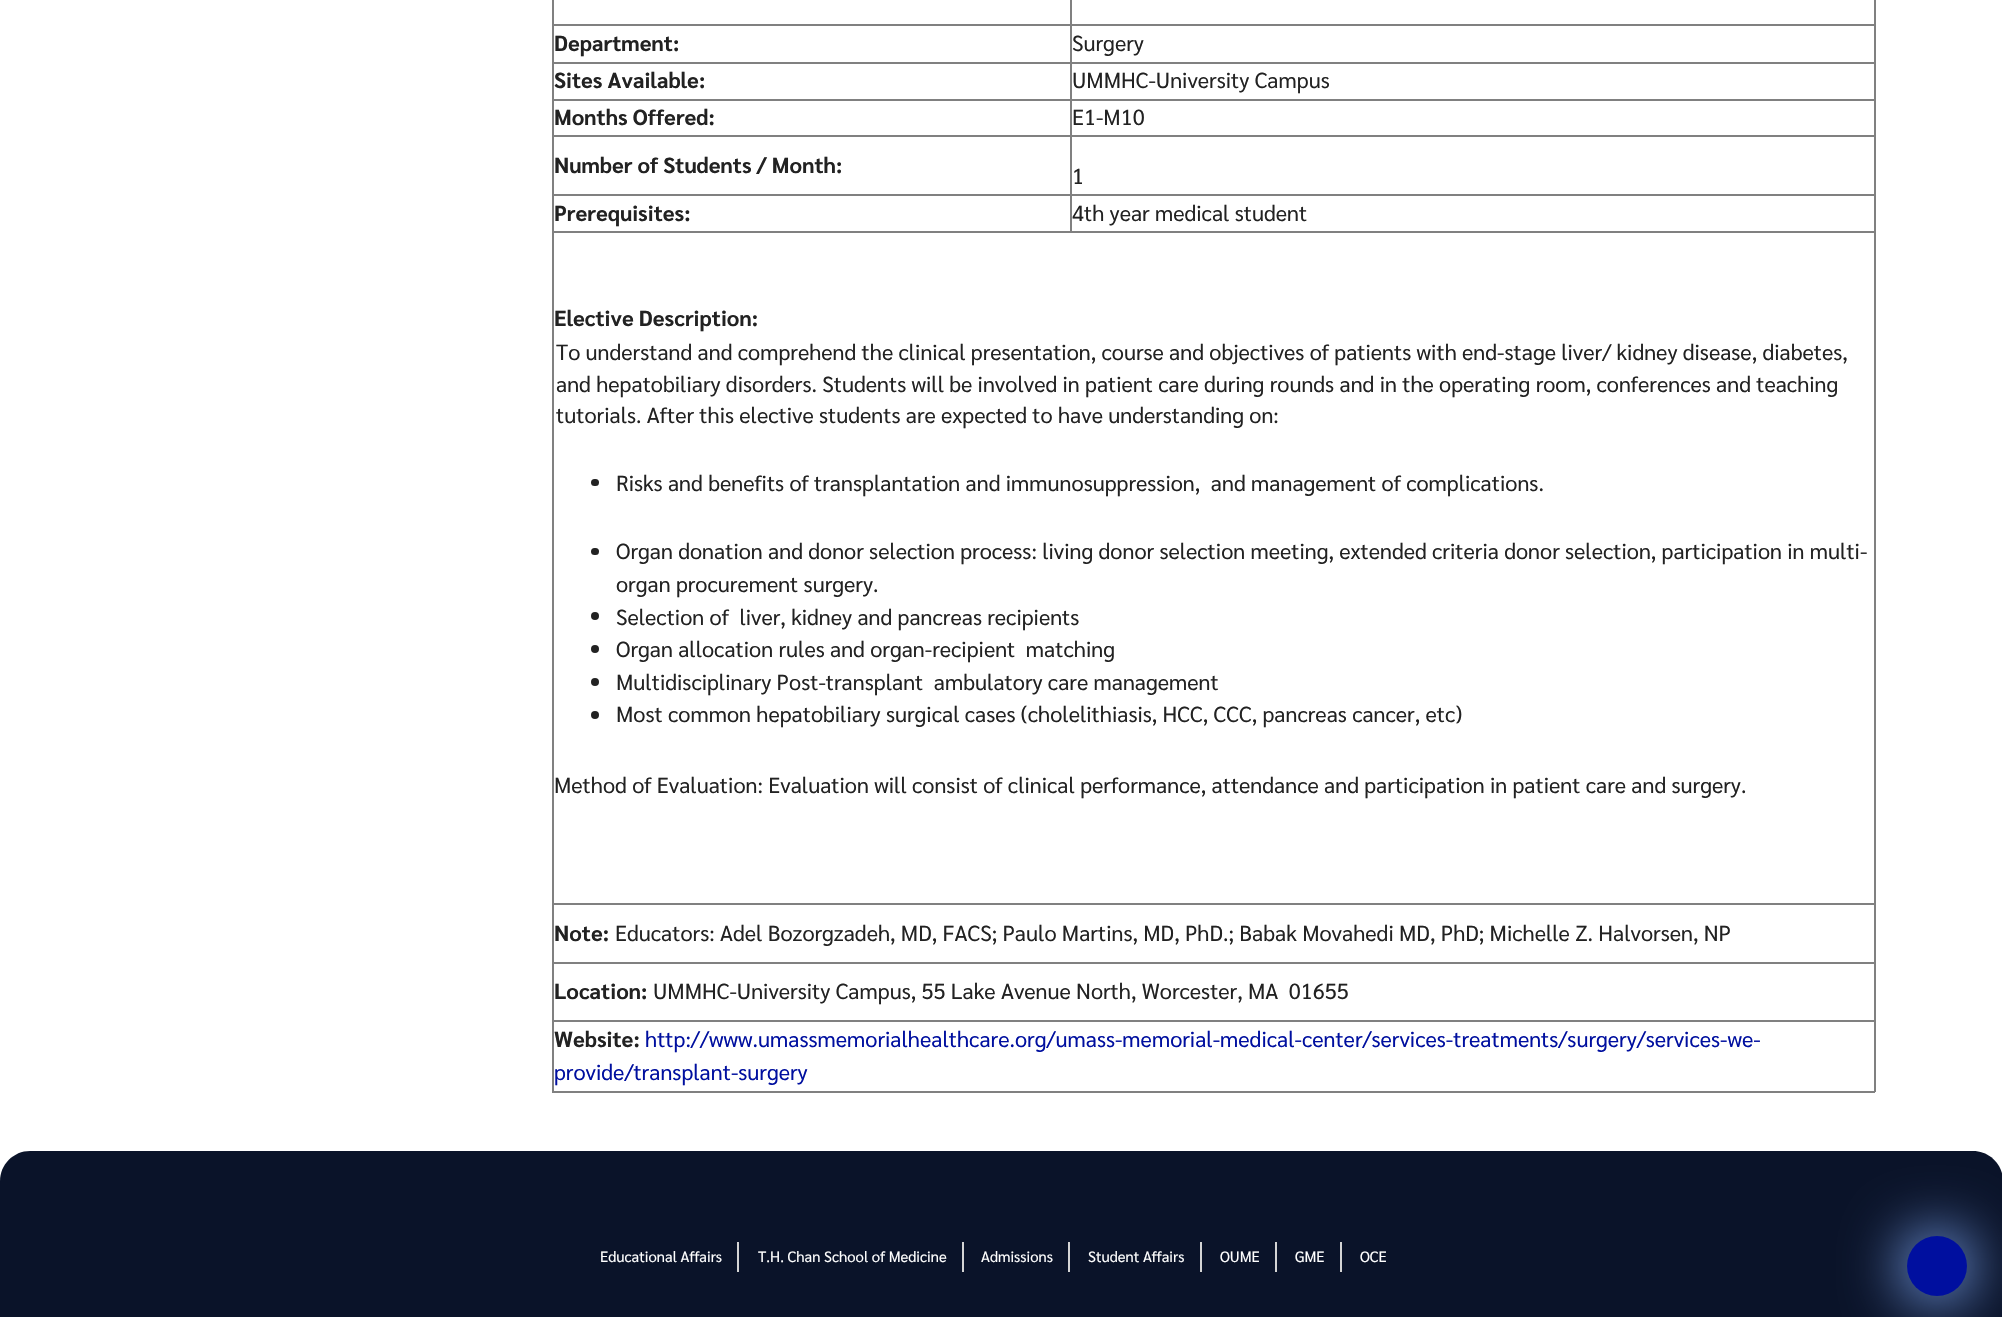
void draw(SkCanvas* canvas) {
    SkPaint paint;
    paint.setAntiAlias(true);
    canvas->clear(0xFFFFFFFF);
    paint.setColor(0xFF808080);
    canvas->drawRect(SkRect::MakeXYWH(1874, 0, 2, 1092), paint);
    canvas->drawRect(SkRect::MakeXYWH(552, 1091, 1323, 2), paint);
    canvas->drawRect(SkRect::MakeXYWH(552, 0, 2, 1092), paint);
    canvas->drawRect(SkRect::MakeXYWH(1070, 24, 805, 2), paint);
    canvas->drawRect(SkRect::MakeXYWH(1070, 62, 805, 2), paint);
    canvas->drawRect(SkRect::MakeXYWH(1070, 99, 805, 2), paint);
    canvas->drawRect(SkRect::MakeXYWH(1070, 135, 805, 2), paint);
    canvas->drawRect(SkRect::MakeXYWH(1070, 194, 805, 2), paint);
    canvas->drawRect(SkRect::MakeXYWH(552, 231, 1323, 2), paint);
    canvas->drawRect(SkRect::MakeXYWH(1070, 194, 2, 39), paint);
    canvas->drawRect(SkRect::MakeXYWH(552, 194, 519, 2), paint);
    canvas->drawRect(SkRect::MakeXYWH(1070, 135, 2, 60), paint);
    canvas->drawRect(SkRect::MakeXYWH(552, 135, 519, 2), paint);
    canvas->drawRect(SkRect::MakeXYWH(1070, 99, 2, 38), paint);
    canvas->drawRect(SkRect::MakeXYWH(552, 99, 519, 2), paint);
    canvas->drawRect(SkRect::MakeXYWH(1070, 62, 2, 39), paint);
    canvas->drawRect(SkRect::MakeXYWH(552, 62, 519, 2), paint);
    canvas->drawRect(SkRect::MakeXYWH(1070, 24, 2, 39), paint);
    canvas->drawRect(SkRect::MakeXYWH(552, 24, 519, 2), paint);
    canvas->drawRect(SkRect::MakeXYWH(1070, 0, 2, 26), paint);
    SkFont font1(fontMgr->matchFamilyStyle("Sarabun", SkFontStyle::Bold()), 21.75f);
    font1.setSubpixel(true);
    paint.setColor(0xFF222222);
    canvas->drawString("Department:", 554, 51, font1, paint);
    SkFont font2(fontMgr->matchFamilyStyle("Sarabun", SkFontStyle::Normal()), 21.75f);
    font2.setSubpixel(true);
    canvas->drawString("Surgery", 1072, 51, font2, paint);
    canvas->drawString("Sites Available:", 554, 88, font1, paint);
    canvas->drawString("UMMHC-University Campus", 1072, 88, font2, paint);
    canvas->drawString("Months Offered:", 554, 125, font1, paint);
    canvas->drawString("E1-M10", 1072, 125, font2, paint);
    canvas->drawString("Number of Students / Month:", 554, 173, font1, paint);
    canvas->drawString("1", 1072, 184, font2, paint);
    canvas->drawString("Prerequisites:", 554, 221, font1, paint);
    canvas->drawString("4th year medical student", 1072, 221, font2, paint);
    canvas->drawString("Elective Description:", 554, 326, font1, paint);
    canvas->drawString("To understand and comprehend the clinical presentation, course and objectives of patients with end-stage liver/ kidney disease, diabetes,", 556, 360, font2, paint);
    canvas->drawString("and hepatobiliary disorders. Students will be involved in patient care during rounds and in the operating room, conferences and teaching", 556, 392, font2, paint);
    canvas->drawString("tutorials. After this elective students are expected to have understanding on:", 556, 423, font2, paint);
    canvas->drawRoundRect(SkRect::MakeXYWH(591, 479, 8, 7), 3.5f, 3.5f, paint);
    canvas->drawString("Risks and benefits of transplantation and immunosuppression,  and management of complications.", 616, 491, font2, paint);
    canvas->drawRoundRect(SkRect::MakeXYWH(591, 548, 8, 7), 3.5f, 3.5f, paint);
    canvas->drawString("Organ donation and donor selection process: living donor selection meeting, extended criteria donor selection, participation in multi-", 616, 559, font2, paint);
    canvas->drawString("organ procurement surgery.", 616, 592, font2, paint);
    canvas->drawCircle(595, 616, 4, paint);
    canvas->drawString("Selection of  liver, kidney and pancreas recipients", 616, 625, font2, paint);
    canvas->drawCircle(595, 649, 4, paint);
    canvas->drawString("Organ allocation rules and organ-recipient  matching", 616, 657, font2, paint);
    canvas->drawCircle(595, 682, 4, paint);
    canvas->drawString("Multidisciplinary Post-transplant  ambulatory care management", 616, 690, font2, paint);
    canvas->drawCircle(595, 715, 4, paint);
    canvas->drawString("Most common hepatobiliary surgical cases (cholelithiasis, HCC, CCC, pancreas cancer, etc)", 616, 722, font2, paint);
    canvas->drawString("Method of Evaluation: Evaluation will consist of clinical performance, attendance and participation in patient care and surgery.", 554, 793, font2, paint);
    paint.setColor(0xFF808080);
    canvas->drawRect(SkRect::MakeXYWH(552, 903, 1323, 2), paint);
    paint.setColor(0xFF222222);
    canvas->drawString("Note:", 554, 941, font1, paint);
    canvas->drawString("Educators: Adel Bozorgzadeh, MD, FACS; Paulo Martins, MD, PhD.; Babak Movahedi MD, PhD; Michelle Z. Halvorsen, NP", 615, 941, font2, paint);
    paint.setColor(0xFF808080);
    canvas->drawRect(SkRect::MakeXYWH(552, 962, 1323, 2), paint);
    paint.setColor(0xFF222222);
    canvas->drawString("Location:", 554, 999, font1, paint);
    canvas->drawString("UMMHC-University Campus, 55 Lake Avenue North, Worcester, MA  01655", 653, 999, font2, paint);
    paint.setColor(0xFF808080);
    canvas->drawRect(SkRect::MakeXYWH(552, 1020, 1323, 2), paint);
    paint.setColor(0xFF222222);
    canvas->drawString("Website:", 554, 1047, font1, paint);
    paint.setColor(0xFF000F9F);
    canvas->drawString("http://www.umassmemorialhealthcare.org/umass-memorial-medical-center/services-treatments/surgery/services-we-", 645, 1047, font2, paint);
    canvas->drawString("provide/transplant-surgery", 554, 1080, font2, paint);
    paint.setColor(0xFF0A1329);
    canvas->drawPath(SkPathBuilder().moveTo(30, 1151).lineTo(1973, 1151).cubicTo(1989.5f, 1151, 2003, 1164.5f, 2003, 1181).lineTo(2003, 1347).lineTo(0, 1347).lineTo(0, 1181).cubicTo(0, 1164.5f, 13.5f, 1151, 30, 1151).close().detach(), paint);
    paint.setColor(0xFFD4D4D4);
    canvas->drawRect(SkRect::MakeXYWH(737, 1242, 2, 30), paint);
    SkFont font3(fontMgr->matchFamilyStyle("Sarabun", SkFontStyle::Normal()), 14.9f);
    font3.setSubpixel(true);
    paint.setColor(0xFFFFFFFF);
    canvas->drawString("Educational Affairs", 600, 1262, font3, paint);
    paint.setColor(0xFFD4D4D4);
    canvas->drawRect(SkRect::MakeXYWH(962, 1242, 2, 30), paint);
    paint.setColor(0xFFFFFFFF);
    canvas->drawString("T.H. Chan School of Medicine", 758, 1262, font3, paint);
    paint.setColor(0xFFD4D4D4);
    canvas->drawRect(SkRect::MakeXYWH(1068, 1242, 2, 30), paint);
    paint.setColor(0xFFFFFFFF);
    canvas->drawString("Admissions", 981, 1262, font3, paint);
    paint.setColor(0xFFD4D4D4);
    canvas->drawRect(SkRect::MakeXYWH(1200, 1242, 2, 30), paint);
    paint.setColor(0xFFFFFFFF);
    canvas->drawString("Student Affairs", 1088, 1262, font3, paint);
    paint.setColor(0xFFD4D4D4);
    canvas->drawRect(SkRect::MakeXYWH(1275, 1242, 2, 30), paint);
    paint.setColor(0xFFFFFFFF);
    canvas->drawString("OUME", 1220, 1262, font3, paint);
    paint.setColor(0xFFD4D4D4);
    canvas->drawRect(SkRect::MakeXYWH(1340, 1242, 2, 30), paint);
    paint.setColor(0xFFFFFFFF);
    canvas->drawString("GME", 1295, 1262, font3, paint);
    canvas->drawString("OCE", 1360, 1262, font3, paint);
    paint.setColor(0xFF84AFFF);
    paint.setMaskFilter(SkMaskFilter::MakeBlur(kNormal_SkBlurStyle, 30));
    canvas->drawRoundRect(SkRect::MakeXYWH(1902, 1232, 69, 69), 34.5f, 34.5f, paint);
    paint.setMaskFilter(nullptr);
    paint.setColor(0xFF000F9F);
    canvas->drawCircle(1937, 1266, 30, paint);
}
